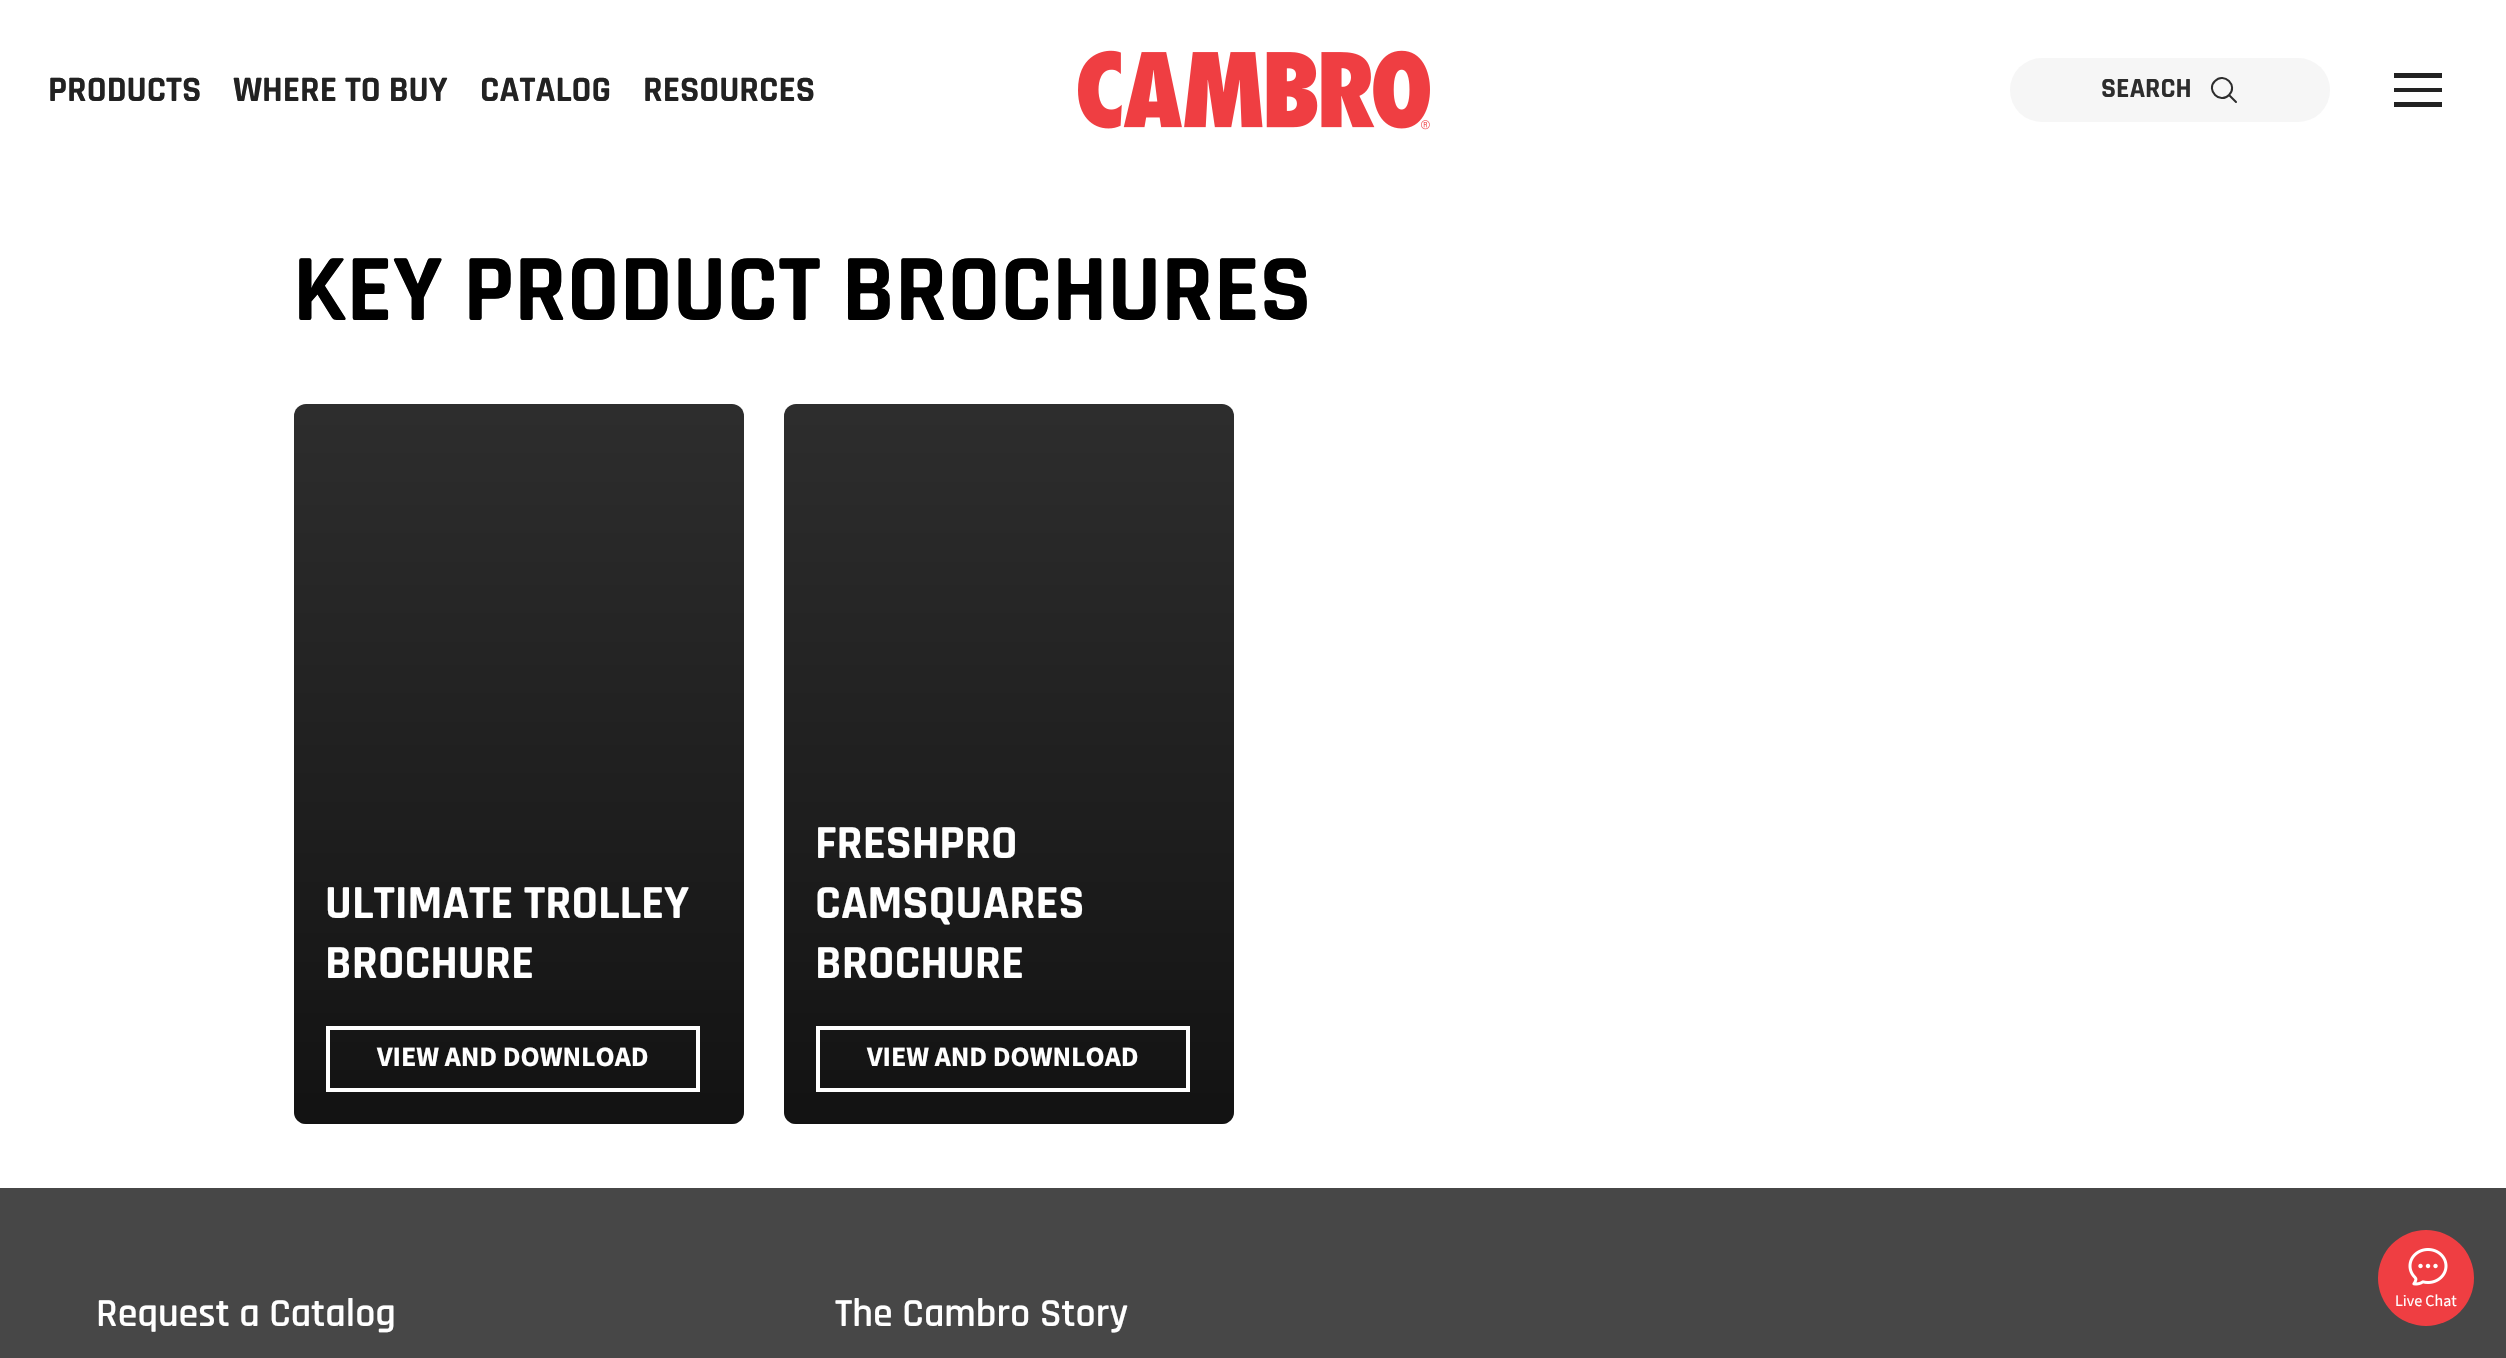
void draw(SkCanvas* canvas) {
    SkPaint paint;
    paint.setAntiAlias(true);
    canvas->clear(0xFFFFFFFF);
    SkFont font1(fontMgr->matchFamilyStyle("Rajdhani", SkFontStyle::Bold()), 36);
    font1.setSubpixel(true);
    paint.setColor(0xFF222222);
    canvas->drawString("PRODUCTS", 48, 101, font1, paint);
    canvas->drawString("WHERE TO BUY", 233, 101, font1, paint);
    canvas->drawString("CATALOG", 480, 101, font1, paint);
    canvas->drawString("RESOURCES", 643, 101, font1, paint);
    canvas->drawImageRect(SkImages::DeferredFromEncodedData(SkData::MakeFromFileName("img1.png")), SkRect::MakeXYWH(1078, 50, 352, 80), SkSamplingOptions());
    paint.setColor(0xFFF6F6F6);
    canvas->drawRoundRect(SkRect::MakeXYWH(2010, 58, 320, 64), 32, 32, paint);
    SkFont font2(fontMgr->matchFamilyStyle("Rajdhani", SkFontStyle::Bold()), 28);
    font2.setSubpixel(true);
    paint.setColor(0xFF2D2D2D);
    canvas->drawString("SEARCH", 2101, 97, font2, paint);
    paint.setStyle(SkPaint::kStroke_Style);
    paint.setStrokeWidth(2);
    paint.setStrokeCap(SkPaint::kRound_Cap);
    paint.setStrokeJoin(SkPaint::kRound_Join);
    canvas->drawPath(SkPathBuilder().moveTo(2236, 102).lineTo(2229, 95).moveTo(2229, 95).cubicTo(2238.5f, 86, 2224, 71.5f, 2215, 81).cubicTo(2205.5f, 90, 2220, 104.5f, 2229, 95).close().detach(), paint);
    paint.setStyle(SkPaint::kFill_Style);
    paint.setColor(0xFF222222);
    canvas->drawPath(SkPathBuilder().moveTo(2394, 73).lineTo(2442, 73).lineTo(2442, 78).lineTo(2394, 78).close().moveTo(2394, 88).lineTo(2442, 88).lineTo(2442, 92).lineTo(2394, 92).close().moveTo(2394, 102).lineTo(2442, 102).lineTo(2442, 107).lineTo(2394, 107).close().detach(), paint);
    SkFont font3(fontMgr->matchFamilyStyle("Rajdhani", SkFontStyle::Bold()), 96);
    font3.setSubpixel(true);
    paint.setColor(0xFF000000);
    canvas->drawString("KEY PRODUCT BROCHURES", 293, 320, font3, paint);
    paint.setColor(0xFF2D2D2D);
    canvas->drawRoundRect(SkRect::MakeXYWH(294, 404, 450, 720), 12, 12, paint);
    {
        const SkColor colors[] = {0x99000000, 0x00000000};
        const float stops[] = {0, 1};
        const SkPoint ends[] = {{519, 1124}, {519, 404}};
        paint.setShader(SkGradientShader::MakeLinear(ends, colors, stops, 2, SkTileMode::kClamp));
        paint.setAlpha(255);
    }
    canvas->drawRoundRect(SkRect::MakeXYWH(294, 404, 450, 720), 12, 12, paint);
    SkFont font4(fontMgr->matchFamilyStyle("Rajdhani", SkFontStyle::Bold()), 48);
    font4.setSubpixel(true);
    paint.setShader(nullptr);
    paint.setColor(0xFFFFFFFF);
    canvas->drawString("ULTIMATE TROLLEY", 325, 918, font4, paint);
    canvas->drawString("BROCHURE", 325, 978, font4, paint);
    paint.setStyle(SkPaint::kStroke_Style);
    paint.setStrokeWidth(4);
    paint.setStrokeCap(SkPaint::kButt_Cap);
    paint.setStrokeJoin(SkPaint::kMiter_Join);
    canvas->drawRect(SkRect::MakeXYWH(328, 1028, 370, 62), paint);
    SkFont font5(fontMgr->matchFamilyStyle("Source Sans 3", SkFontStyle::Bold()), 28);
    font5.setSubpixel(true);
    paint.setStyle(SkPaint::kFill_Style);
    canvas->drawString("VIEW AND DOWNLOAD", 377, 1066, font5, paint);
    paint.setColor(0xFF2D2D2D);
    canvas->drawRoundRect(SkRect::MakeXYWH(784, 404, 450, 720), 12, 12, paint);
    {
        const SkColor colors[] = {0x99000000, 0x00000000};
        const float stops[] = {0, 1};
        const SkPoint ends[] = {{1009, 1124}, {1009, 404}};
        paint.setShader(SkGradientShader::MakeLinear(ends, colors, stops, 2, SkTileMode::kClamp));
        paint.setAlpha(255);
    }
    canvas->drawRoundRect(SkRect::MakeXYWH(784, 404, 450, 720), 12, 12, paint);
    paint.setShader(nullptr);
    paint.setColor(0xFFFFFFFF);
    canvas->drawString("FRESHPRO", 815, 858, font4, paint);
    canvas->drawString("CAMSQUARES", 815, 918, font4, paint);
    canvas->drawString("BROCHURE", 815, 978, font4, paint);
    paint.setStyle(SkPaint::kStroke_Style);
    canvas->drawRect(SkRect::MakeXYWH(818, 1028, 370, 62), paint);
    paint.setStyle(SkPaint::kFill_Style);
    canvas->drawString("VIEW AND DOWNLOAD", 867, 1066, font5, paint);
    paint.setColor(0xFF474747);
    canvas->drawRect(SkRect::MakeXYWH(0, 1188, 2506, 170), paint);
    SkFont font6(fontMgr->matchFamilyStyle("Rajdhani", SkFontStyle(600, SkFontStyle::kNormal_Width, SkFontStyle::kUpright_Slant)), 40);
    font6.setSubpixel(true);
    paint.setColor(0xFFFFFFFF);
    canvas->drawString("Request a Catalog", 96, 1326, font6, paint);
    canvas->drawString("The Cambro Story", 835, 1326, font6, paint);
    paint.setColor(0xFFEF3E42);
    canvas->drawCircle(2426, 1278, 48, paint);
    canvas->drawImageRect(SkImages::DeferredFromEncodedData(SkData::MakeFromFileName("img2.png")), SkRect::MakeXYWH(2408, 1248, 40, 38), SkSamplingOptions());
    SkFont font7(fontMgr->matchFamilyStyle("Source Sans 3", SkFontStyle::Normal()), 16);
    font7.setSubpixel(true);
    paint.setColor(0xFFFFFFFF);
    canvas->drawString("Live Chat", 2395, 1306, font7, paint);
}
